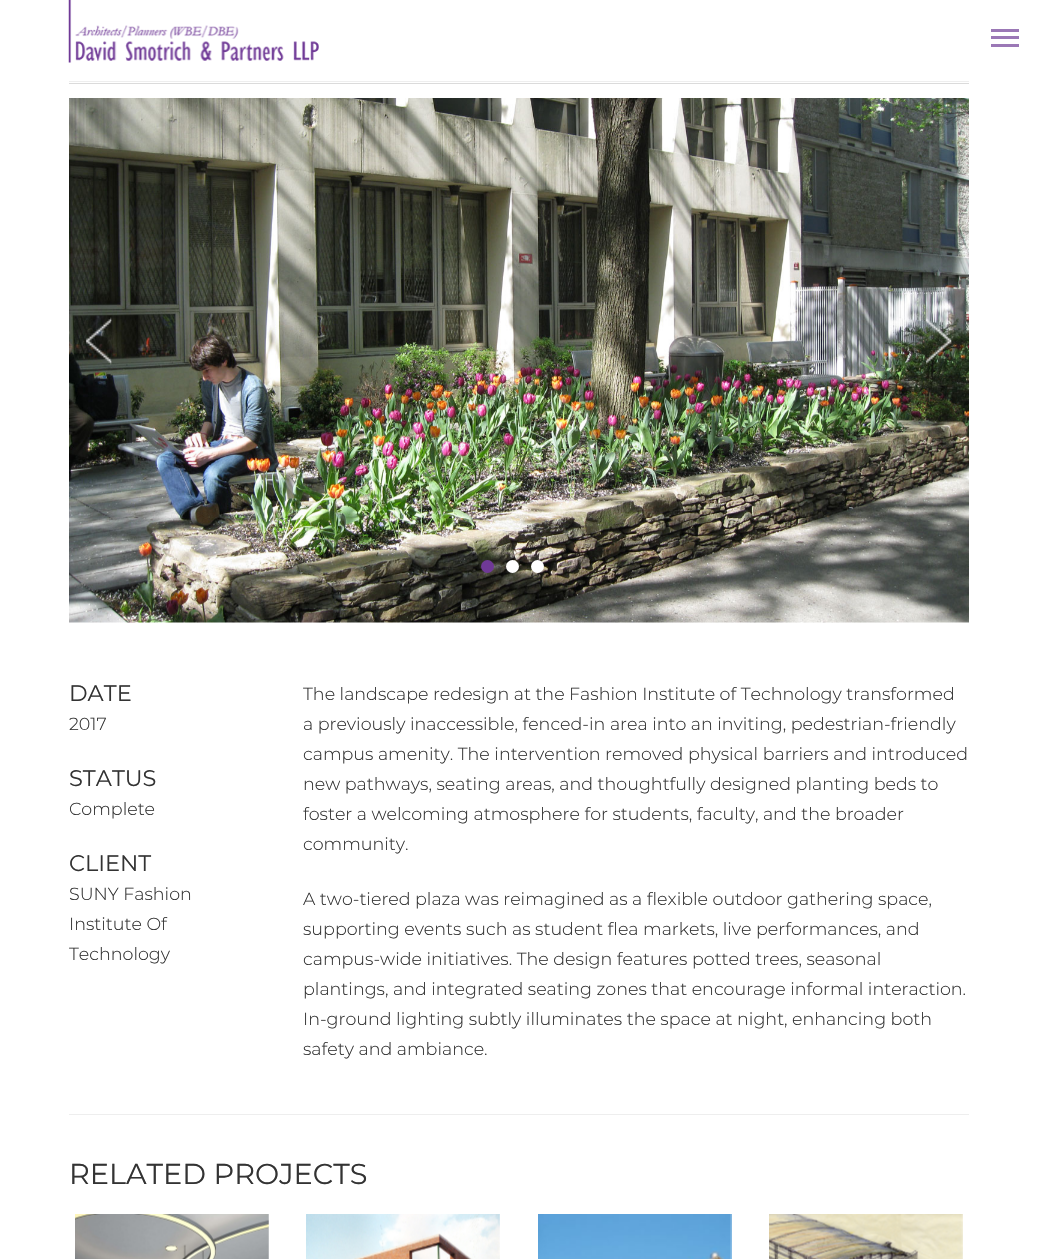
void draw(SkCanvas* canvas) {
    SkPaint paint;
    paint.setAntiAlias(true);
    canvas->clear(0xFFFFFFFF);
    canvas->drawImageRect(SkImages::DeferredFromEncodedData(SkData::MakeFromFileName("img1.png")), SkRect::MakeXYWH(68, 0, 251, 63), SkSamplingOptions());
    paint.setColor(0xFF9B78B6);
    canvas->drawRect(SkRect::MakeXYWH(991, 36, 28, 3), paint);
    canvas->drawRect(SkRect::MakeXYWH(991, 29, 28, 3), paint);
    canvas->drawRect(SkRect::MakeXYWH(991, 44, 28, 3), paint);
    paint.setColor(0xFFEEEEEE);
    canvas->drawRect(SkRect::MakeXYWH(69, 81, 900, 1), paint);
    paint.setColor(0xFFDBDBDB);
    canvas->drawRect(SkRect::MakeXYWH(69, 83, 900, 1), paint);
    canvas->drawImageRect(SkImages::DeferredFromEncodedData(SkData::MakeFromFileName("img2.png")), SkRect::MakeXYWH(69, 98, 900, 525), SkSamplingOptions());
    canvas->drawImageRect(SkImages::DeferredFromEncodedData(SkData::MakeFromFileName("img3.png")), SkRect::MakeXYWH(86, 317, 26, 48), SkSamplingOptions());
    canvas->drawImageRect(SkImages::DeferredFromEncodedData(SkData::MakeFromFileName("img4.png")), SkRect::MakeXYWH(926, 317, 26, 48), SkSamplingOptions());
    paint.setColor(0xFF6F3996);
    canvas->drawCircle(487.5f, 566.5f, 6.5f, paint);
    paint.setColor(0xFFFFFFFF);
    canvas->drawCircle(512.5f, 566.5f, 6.5f, paint);
    canvas->drawCircle(537.5f, 566.5f, 6.5f, paint);
    SkFont font1(fontMgr->matchFamilyStyle("Montserrat", SkFontStyle::Normal()), 22.5f);
    font1.setSubpixel(true);
    paint.setColor(0xFF333333);
    canvas->drawString("DATE", 69, 701, font1, paint);
    SkFont font2(fontMgr->matchFamilyStyle("Montserrat", SkFontStyle(300, SkFontStyle::kNormal_Width, SkFontStyle::kUpright_Slant)), 17.5f);
    font2.setSubpixel(true);
    canvas->drawString("2017", 69, 730, font2, paint);
    canvas->drawString("STATUS", 69, 786, font1, paint);
    canvas->drawString("Complete", 69, 815, font2, paint);
    canvas->drawString("CLIENT", 69, 871, font1, paint);
    canvas->drawString("SUNY Fashion", 69, 900, font2, paint);
    canvas->drawString("Institute Of", 69, 930, font2, paint);
    canvas->drawString("Technology", 69, 960, font2, paint);
    canvas->drawString("The landscape redesign at the Fashion Institute of Technology transformed", 303, 700, font2, paint);
    canvas->drawString("a previously inaccessible, fenced-in area into an inviting, pedestrian-friendly", 303, 730, font2, paint);
    canvas->drawString("campus amenity. The intervention removed physical barriers and introduced", 303, 760, font2, paint);
    canvas->drawString("new pathways, seating areas, and thoughtfully designed planting beds to", 303, 790, font2, paint);
    canvas->drawString("foster a welcoming atmosphere for students, faculty, and the broader", 303, 820, font2, paint);
    canvas->drawString("community.", 303, 850, font2, paint);
    canvas->drawString("A two-tiered plaza was reimagined as a flexible outdoor gathering space,", 303, 905, font2, paint);
    canvas->drawString("supporting events such as student flea markets, live performances, and", 303, 935, font2, paint);
    canvas->drawString("campus-wide initiatives. The design features potted trees, seasonal", 303, 965, font2, paint);
    canvas->drawString("plantings, and integrated seating zones that encourage informal interaction.", 303, 995, font2, paint);
    canvas->drawString("In-ground lighting subtly illuminates the space at night, enhancing both", 303, 1025, font2, paint);
    canvas->drawString("safety and ambiance.", 303, 1055, font2, paint);
    paint.setColor(0xFFEEEEEE);
    canvas->drawRect(SkRect::MakeXYWH(69, 1114, 900, 1), paint);
    SkFont font3(fontMgr->matchFamilyStyle("Montserrat", SkFontStyle::Normal()), 28.75f);
    font3.setSubpixel(true);
    paint.setColor(0xFF333333);
    canvas->drawString("RELATED PROJECTS", 69, 1184, font3, paint);
    canvas->drawImageRect(SkImages::DeferredFromEncodedData(SkData::MakeFromFileName("img5.png")), SkRect::MakeXYWH(75, 1214, 194, 45), SkSamplingOptions());
    canvas->drawImageRect(SkImages::DeferredFromEncodedData(SkData::MakeFromFileName("img6.png")), SkRect::MakeXYWH(306, 1214, 194, 45), SkSamplingOptions());
    canvas->drawImageRect(SkImages::DeferredFromEncodedData(SkData::MakeFromFileName("img7.png")), SkRect::MakeXYWH(538, 1214, 194, 45), SkSamplingOptions());
    canvas->drawImageRect(SkImages::DeferredFromEncodedData(SkData::MakeFromFileName("img8.png")), SkRect::MakeXYWH(769, 1214, 194, 45), SkSamplingOptions());
}
